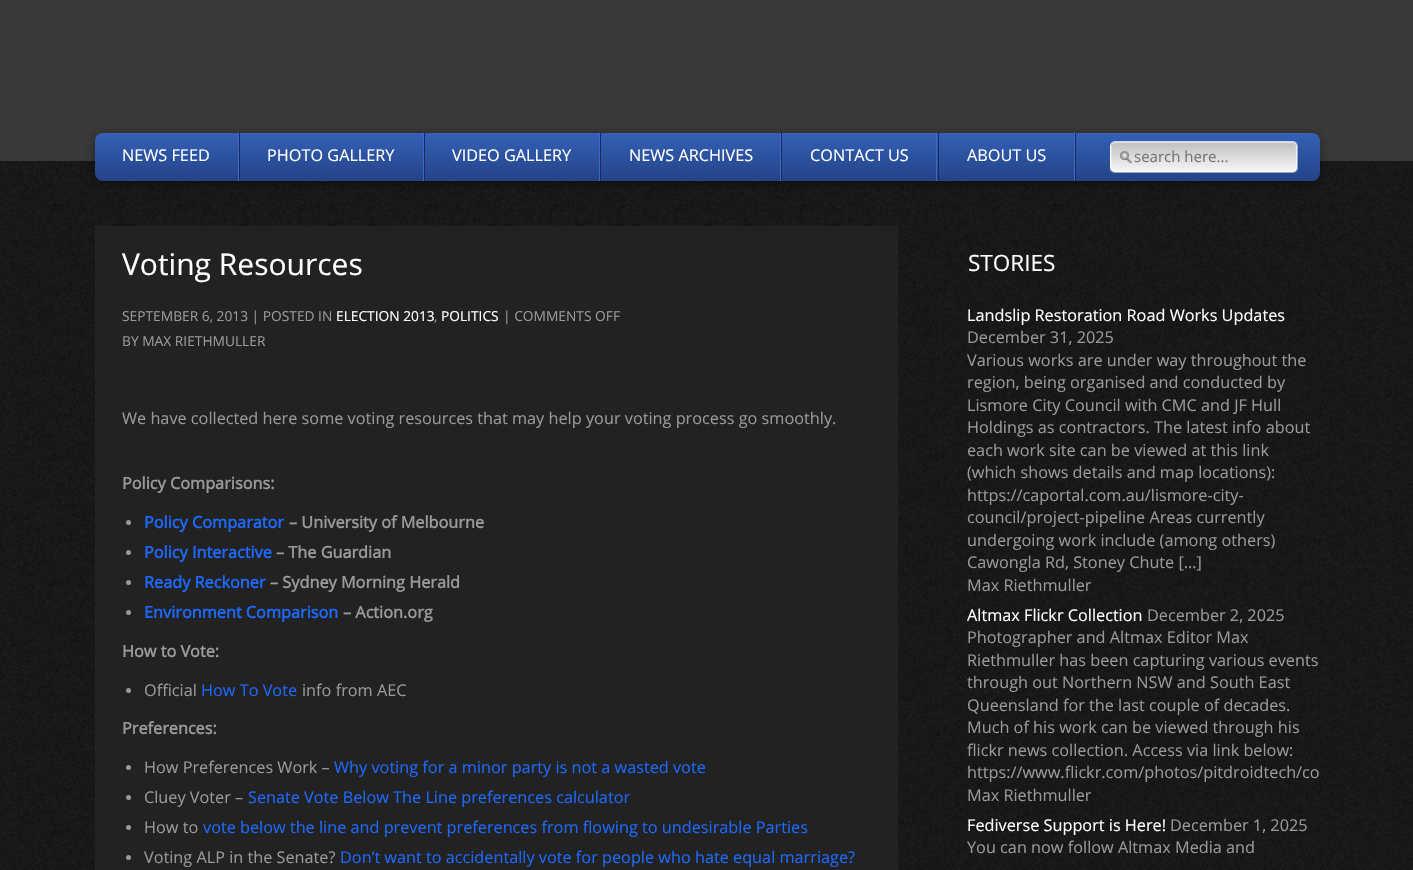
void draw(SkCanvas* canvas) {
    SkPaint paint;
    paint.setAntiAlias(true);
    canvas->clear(0xFFFFFFFF);
    canvas->drawImageRect(SkImages::DeferredFromEncodedData(SkData::MakeFromFileName("img1.png")), SkRect::MakeXYWH(0, 161, 1413, 709), SkSamplingOptions());
    paint.setColor(0xFF393939);
    canvas->drawRect(SkRect::MakeXYWH(0, 0, 1413, 161), paint);
    paint.setColor(0x59000000);
    paint.setMaskFilter(SkMaskFilter::MakeBlur(kNormal_SkBlurStyle, 6));
    canvas->drawRoundRect(SkRect::MakeXYWH(95, 135, 1225, 49), 8, 8, paint);
    paint.setMaskFilter(nullptr);
    {
        const SkColor colors[] = {0xFF3461B7, 0xFF244386};
        const float stops[] = {0, 1};
        const SkPoint ends[] = {{708, 132}, {708, 181}};
        paint.setShader(SkGradientShader::MakeLinear(ends, colors, stops, 2, SkTileMode::kClamp));
        paint.setAlpha(255);
    }
    canvas->drawRoundRect(SkRect::MakeXYWH(95, 133, 1225, 48), 8, 8, paint);
    paint.setShader(nullptr);
    paint.setColor(0xFF3A68CD);
    canvas->drawRect(SkRect::MakeXYWH(238, 133, 1, 48), paint);
    SkFont font1(fontMgr->matchFamilyStyle("Open Sans", SkFontStyle::Normal()), 16.25f);
    font1.setSubpixel(true);
    paint.setColor(0xFFFFFFFF);
    canvas->drawString("NEWS FEED", 122, 161, font1, paint);
    paint.setColor(0xFF3A68CD);
    canvas->drawRect(SkRect::MakeXYWH(423, 133, 1, 48), paint);
    paint.setColor(0xFF182D5B);
    canvas->drawPath(SkPathBuilder().moveTo(239, 181).lineTo(239, 132).lineTo(240, 132).lineTo(240, 180).close().detach(), paint);
    paint.setColor(0xFFFFFFFF);
    canvas->drawString("PHOTO GALLERY", 267, 161, font1, paint);
    paint.setColor(0xFF3A68CD);
    canvas->drawRect(SkRect::MakeXYWH(599, 133, 1, 48), paint);
    paint.setColor(0xFF182D5B);
    canvas->drawPath(SkPathBuilder().moveTo(424, 181).lineTo(424, 132).lineTo(425, 132).lineTo(425, 180).close().detach(), paint);
    paint.setColor(0xFFFFFFFF);
    canvas->drawString("VIDEO GALLERY", 452, 161, font1, paint);
    paint.setColor(0xFF3A68CD);
    canvas->drawRect(SkRect::MakeXYWH(780, 133, 1, 48), paint);
    paint.setColor(0xFF182D5B);
    canvas->drawPath(SkPathBuilder().moveTo(600, 181).lineTo(600, 132).lineTo(601, 132).lineTo(601, 180).close().detach(), paint);
    paint.setColor(0xFFFFFFFF);
    canvas->drawString("NEWS ARCHIVES", 629, 161, font1, paint);
    paint.setColor(0xFF3A68CD);
    canvas->drawRect(SkRect::MakeXYWH(936, 133, 1, 48), paint);
    paint.setColor(0xFF182D5B);
    canvas->drawPath(SkPathBuilder().moveTo(781, 181).lineTo(781, 132).lineTo(782, 132).lineTo(782, 180).close().detach(), paint);
    paint.setColor(0xFFFFFFFF);
    canvas->drawString("CONTACT US", 810, 161, font1, paint);
    paint.setColor(0xFF182D5B);
    canvas->drawRect(SkRect::MakeXYWH(1075, 133, 1, 48), paint);
    paint.setColor(0xFF3A68CD);
    canvas->drawPath(SkPathBuilder().moveTo(1075, 132).lineTo(1075, 181).lineTo(1074, 180).lineTo(1074, 132).close().detach(), paint);
    paint.setColor(0xFF182D5B);
    canvas->drawPath(SkPathBuilder().moveTo(938, 181).lineTo(938, 132).lineTo(939, 132).lineTo(939, 180).close().detach(), paint);
    paint.setColor(0xFFFFFFFF);
    canvas->drawString("ABOUT US", 967, 161, font1, paint);
    canvas->drawImageRect(SkImages::DeferredFromEncodedData(SkData::MakeFromFileName("img2.png")), SkRect::MakeXYWH(1110, 141, 188, 32), SkSamplingOptions());
    SkFont font2(fontMgr->matchFamilyStyle("Open Sans", SkFontStyle::Normal()), 15);
    font2.setSubpixel(true);
    paint.setColor(0xFF757575);
    canvas->drawString("search here...", 1134, 162, font2, paint);
    paint.setColor(0xFF222222);
    canvas->drawRect(SkRect::MakeXYWH(95, 226, 803, 644), paint);
    SkFont font3(fontMgr->matchFamilyStyle("Open Sans", SkFontStyle::Normal()), 30);
    font3.setSubpixel(true);
    paint.setColor(0xFFFFFFFF);
    canvas->drawString("Voting Resources", 122, 275, font3, paint);
    SkFont font4(fontMgr->matchFamilyStyle("Open Sans", SkFontStyle::Normal()), 13.75f);
    font4.setSubpixel(true);
    paint.setColor(0xFF999999);
    canvas->drawString("SEPTEMBER 6, 2013 | POSTED IN", 122, 321, font4, paint);
    paint.setColor(0xFFFFFFFF);
    canvas->drawString("ELECTION 2013", 336, 321, font4, paint);
    paint.setColor(0xFF999999);
    canvas->drawString(",", 434, 321, font4, paint);
    paint.setColor(0xFFFFFFFF);
    canvas->drawString("POLITICS", 441, 321, font4, paint);
    paint.setColor(0xFF999999);
    canvas->drawString("| COMMENTS OFF", 503, 321, font4, paint);
    canvas->drawString("BY MAX RIETHMULLER", 122, 346, font4, paint);
    canvas->drawString("We have collected here some voting resources that may help your voting process go smoothly.", 122, 424, font1, paint);
    SkFont font5(fontMgr->matchFamilyStyle("Open Sans", SkFontStyle::Bold()), 16.25f);
    font5.setSubpixel(true);
    canvas->drawString("Policy Comparisons:", 122, 489, font5, paint);
    canvas->drawCircle(128.5f, 522.5f, 2.5f, paint);
    paint.setColor(0xFF1D69FD);
    canvas->drawString("Policy Comparator", 144, 528, font5, paint);
    paint.setColor(0xFF999999);
    canvas->drawString("– University of Melbourne", 289, 528, font5, paint);
    canvas->drawCircle(128.5f, 552.5f, 2.5f, paint);
    paint.setColor(0xFF1D69FD);
    canvas->drawString("Policy Interactive", 144, 558, font5, paint);
    paint.setColor(0xFF999999);
    canvas->drawString("– The Guardian", 276, 558, font5, paint);
    canvas->drawCircle(128.5f, 582.5f, 2.5f, paint);
    paint.setColor(0xFF1D69FD);
    canvas->drawString("Ready Reckoner", 144, 588, font5, paint);
    paint.setColor(0xFF999999);
    canvas->drawString("– Sydney Morning Herald", 270, 588, font5, paint);
    canvas->drawCircle(128.5f, 612.5f, 2.5f, paint);
    paint.setColor(0xFF1D69FD);
    canvas->drawString("Environment Comparison", 144, 618, font5, paint);
    paint.setColor(0xFF999999);
    canvas->drawString("– Action.org", 343, 618, font5, paint);
    canvas->drawString("How to Vote:", 122, 657, font5, paint);
    canvas->drawCircle(128.5f, 690.5f, 2.5f, paint);
    canvas->drawString("Official", 144, 696, font1, paint);
    paint.setColor(0xFF1D69FD);
    canvas->drawString("How To Vote", 201, 696, font1, paint);
    paint.setColor(0xFF999999);
    canvas->drawString("info from AEC", 302, 696, font1, paint);
    canvas->drawString("Preferences:", 122, 734, font5, paint);
    canvas->drawCircle(128.5f, 767.5f, 2.5f, paint);
    canvas->drawString("How Preferences Work –", 144, 773, font1, paint);
    paint.setColor(0xFF1D69FD);
    canvas->drawString("Why voting for a minor party is not a wasted vote", 334, 773, font1, paint);
    paint.setColor(0xFF999999);
    canvas->drawCircle(128.5f, 797.5f, 2.5f, paint);
    canvas->drawString("Cluey Voter –", 144, 803, font1, paint);
    paint.setColor(0xFF1D69FD);
    canvas->drawString("Senate Vote Below The Line preferences calculator", 248, 803, font1, paint);
    paint.setColor(0xFF999999);
    canvas->drawCircle(128.5f, 827.5f, 2.5f, paint);
    canvas->drawString("How to", 144, 833, font1, paint);
    paint.setColor(0xFF1D69FD);
    canvas->drawString("vote below the line and prevent preferences from flowing to undesirable Parties", 203, 833, font1, paint);
    paint.setColor(0xFF999999);
    canvas->drawCircle(128.5f, 857.5f, 2.5f, paint);
    canvas->drawString("Voting ALP in the Senate?", 144, 863, font1, paint);
    paint.setColor(0xFF1D69FD);
    canvas->drawString("Don’t want to accidentally vote for people who hate equal marriage?", 340, 863, font1, paint);
    SkFont font6(fontMgr->matchFamilyStyle("Open Sans", SkFontStyle::Normal()), 22.5f);
    font6.setSubpixel(true);
    paint.setColor(0xFFFFFFFF);
    canvas->drawString("STORIES", 968, 271, font6, paint);
    canvas->drawString("Landslip Restoration Road Works Updates", 967, 321, font1, paint);
    paint.setColor(0xFF999999);
    canvas->drawString("December 31, 2025", 967, 343, font1, paint);
    canvas->drawString("Various works are under way throughout the", 967, 366, font1, paint);
    canvas->drawString("region, being organised and conducted by", 967, 388, font1, paint);
    canvas->drawString("Lismore City Council with CMC and JF Hull", 967, 411, font1, paint);
    canvas->drawString("Holdings as contractors. The latest info about", 967, 433, font1, paint);
    canvas->drawString("each work site can be viewed at this link", 967, 456, font1, paint);
    canvas->drawString("(which shows details and map locations):", 967, 478, font1, paint);
    canvas->drawString("https://caportal.com.au/lismore-city-", 967, 501, font1, paint);
    canvas->drawString("council/project-pipeline Areas currently", 967, 523, font1, paint);
    canvas->drawString("undergoing work include (among others)", 967, 546, font1, paint);
    canvas->drawString("Cawongla Rd, Stoney Chute […]", 967, 568, font1, paint);
    canvas->drawString("Max Riethmuller", 967, 591, font1, paint);
    paint.setColor(0xFFFFFFFF);
    canvas->drawString("Altmax Flickr Collection", 967, 621, font1, paint);
    paint.setColor(0xFF999999);
    canvas->drawString("December 2, 2025", 1147, 621, font1, paint);
    canvas->drawString("Photographer and Altmax Editor Max", 967, 643, font1, paint);
    canvas->drawString("Riethmuller has been capturing various events", 967, 666, font1, paint);
    canvas->drawString("through out Northern NSW and South East", 967, 688, font1, paint);
    canvas->drawString("Queensland for the last couple of decades.", 967, 711, font1, paint);
    canvas->drawString("Much of his work can be viewed through his", 967, 733, font1, paint);
    canvas->drawString("flickr news collection. Access via link below:", 967, 756, font1, paint);
    canvas->drawString("https://www.flickr.com/photos/pitdroidtech/co", 967, 778, font1, paint);
    canvas->drawString("Max Riethmuller", 967, 801, font1, paint);
    paint.setColor(0xFFFFFFFF);
    canvas->drawString("Fediverse Support is Here!", 967, 831, font1, paint);
    paint.setColor(0xFF999999);
    canvas->drawString("December 1, 2025", 1170, 831, font1, paint);
    canvas->drawString("You can now follow Altmax Media and", 967, 853, font1, paint);
}
